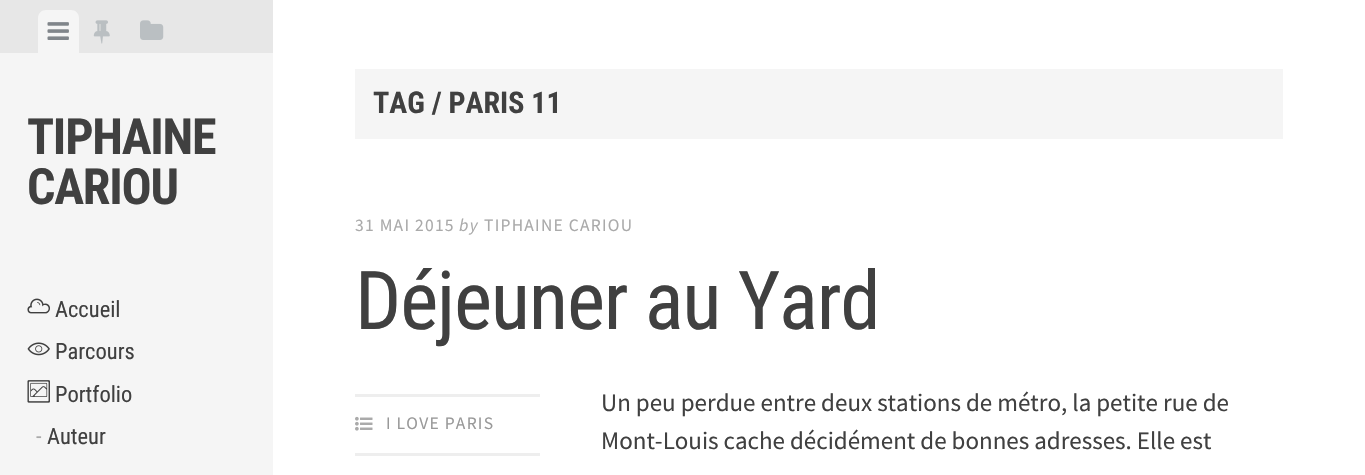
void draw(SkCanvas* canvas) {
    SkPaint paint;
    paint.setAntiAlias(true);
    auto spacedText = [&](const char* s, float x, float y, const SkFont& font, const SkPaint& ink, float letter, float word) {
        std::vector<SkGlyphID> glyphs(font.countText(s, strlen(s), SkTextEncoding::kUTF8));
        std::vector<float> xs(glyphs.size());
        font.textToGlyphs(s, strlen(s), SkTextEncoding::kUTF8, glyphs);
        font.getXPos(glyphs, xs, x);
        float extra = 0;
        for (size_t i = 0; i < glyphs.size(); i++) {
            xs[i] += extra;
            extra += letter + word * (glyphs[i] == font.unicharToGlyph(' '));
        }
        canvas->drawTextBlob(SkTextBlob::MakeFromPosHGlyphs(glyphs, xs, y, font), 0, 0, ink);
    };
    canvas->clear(0xFFFFFFFF);
    paint.setColor(0xFFF5F5F5);
    canvas->drawRect(SkRect::MakeXYWH(0, 53, 273, 422), paint);
    paint.setColor(0xFFE7E7E7);
    canvas->drawRect(SkRect::MakeXYWH(0, 0, 273, 53), paint);
    paint.setColor(0xFFF5F5F5);
    canvas->drawPath(SkPathBuilder().moveTo(46, 10).lineTo(71, 10).cubicTo(75.5f, 10, 79, 13.5f, 79, 18).lineTo(79, 53).lineTo(38, 53).lineTo(38, 18).cubicTo(38, 13.5f, 41.5f, 10, 46, 10).close().detach(), paint);
    canvas->drawImageRect(SkImages::DeferredFromEncodedData(SkData::MakeFromFileName("img1.png")), SkRect::MakeXYWH(47, 22, 22, 18), SkSamplingOptions());
    canvas->drawImageRect(SkImages::DeferredFromEncodedData(SkData::MakeFromFileName("img2.png")), SkRect::MakeXYWH(93, 20, 17, 24), SkSamplingOptions());
    canvas->drawImageRect(SkImages::DeferredFromEncodedData(SkData::MakeFromFileName("img3.png")), SkRect::MakeXYWH(140, 20, 24, 20), SkSamplingOptions());
    SkFont font1(fontMgr->matchFamilyStyle("Roboto Condensed", SkFontStyle::Bold()), 50);
    font1.setSubpixel(true);
    paint.setColor(0xFF404040);
    spacedText("TIPHAINE", 27, 154, font1, paint, -1.25f, 0);
    spacedText("CARIOU", 27, 204, font1, paint, -1.25f, 0);
    canvas->drawImageRect(SkImages::DeferredFromEncodedData(SkData::MakeFromFileName("img4.png")), SkRect::MakeXYWH(27, 298, 23, 16), SkSamplingOptions());
    SkFont font2(fontMgr->matchFamilyStyle("Roboto Condensed", SkFontStyle::Normal()), 22.5f);
    font2.setSubpixel(true);
    canvas->drawString("Accueil", 55, 317, font2, paint);
    canvas->drawImageRect(SkImages::DeferredFromEncodedData(SkData::MakeFromFileName("img5.png")), SkRect::MakeXYWH(27, 342, 23, 14), SkSamplingOptions());
    canvas->drawString("Parcours", 55, 359, font2, paint);
    canvas->drawImageRect(SkImages::DeferredFromEncodedData(SkData::MakeFromFileName("img6.png")), SkRect::MakeXYWH(27, 380, 23, 23), SkSamplingOptions());
    canvas->drawString("Portfolio", 55, 402, font2, paint);
    paint.setColor(0xFFAAAAAA);
    canvas->drawString("-", 36, 444, font2, paint);
    paint.setColor(0xFF404040);
    canvas->drawString("Auteur", 47, 444, font2, paint);
    paint.setColor(0xFFF5F5F5);
    canvas->drawRect(SkRect::MakeXYWH(355, 69, 928, 70), paint);
    SkFont font3(fontMgr->matchFamilyStyle("Roboto Condensed", SkFontStyle::Bold()), 30);
    font3.setSubpixel(true);
    paint.setColor(0xFF404040);
    canvas->drawString("TAG / PARIS 11", 373, 113, font3, paint);
    SkFont font4(fontMgr->matchFamilyStyle("Source Sans Pro", SkFontStyle::Normal()), 17.5f);
    font4.setSubpixel(true);
    paint.setColor(0xFFAAAAAA);
    spacedText("31 MAI 2015", 355, 231, font4, paint, 1.25f, 0);
    SkFont font5(fontMgr->matchFamilyStyle("Source Sans Pro", SkFontStyle::Italic()), 17.5f);
    font5.setSubpixel(true);
    spacedText("by", 459, 231, font5, paint, 1.25f, 0);
    spacedText("TIPHAINE CARIOU", 484, 231, font4, paint, 1.25f, 0);
    SkFont font6(fontMgr->matchFamilyStyle("Roboto Condensed", SkFontStyle::Normal()), 81.25f);
    font6.setSubpixel(true);
    paint.setColor(0xFF404040);
    spacedText("Déjeuner au Yard", 355, 329, font6, paint, -1.25f, 0);
    paint.setColor(0xFFEEEEEE);
    canvas->drawRect(SkRect::MakeXYWH(355, 394, 185, 3), paint);
    canvas->drawRect(SkRect::MakeXYWH(355, 453, 185, 3), paint);
    canvas->drawImageRect(SkImages::DeferredFromEncodedData(SkData::MakeFromFileName("img7.png")), SkRect::MakeXYWH(355, 416, 18, 15), SkSamplingOptions());
    paint.setColor(0xFF999999);
    spacedText("I LOVE PARIS", 386, 429, font4, paint, 1.25f, 0);
    SkFont font7(fontMgr->matchFamilyStyle("Source Sans Pro", SkFontStyle::Normal()), 25);
    font7.setSubpixel(true);
    paint.setColor(0xFF404040);
    canvas->drawString("Un peu perdue entre deux stations de métro, la petite rue de", 601, 411, font7, paint);
    canvas->drawString("Mont-Louis cache décidément de bonnes adresses. Elle est", 601, 449, font7, paint);
}
